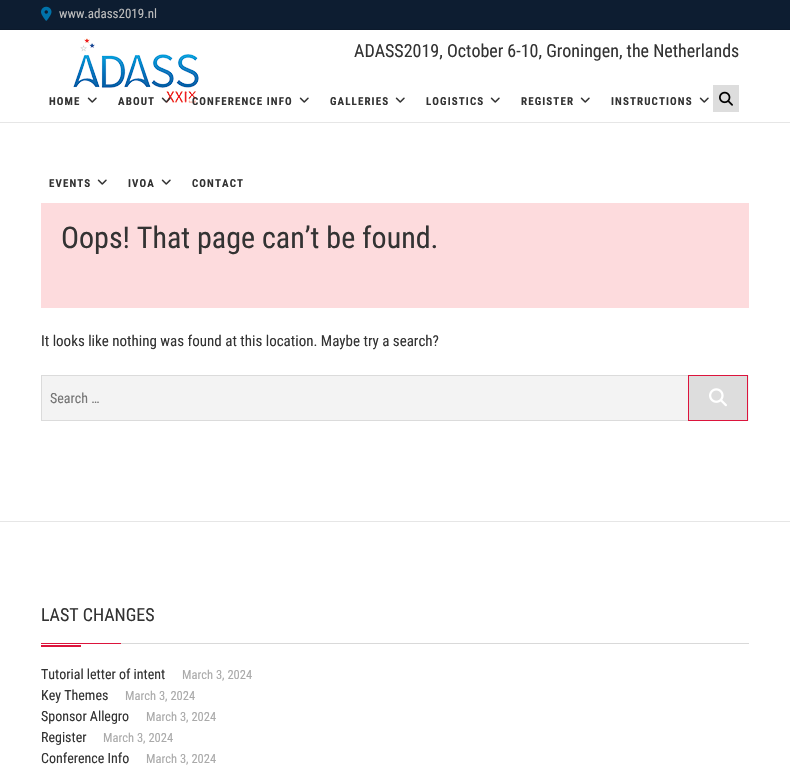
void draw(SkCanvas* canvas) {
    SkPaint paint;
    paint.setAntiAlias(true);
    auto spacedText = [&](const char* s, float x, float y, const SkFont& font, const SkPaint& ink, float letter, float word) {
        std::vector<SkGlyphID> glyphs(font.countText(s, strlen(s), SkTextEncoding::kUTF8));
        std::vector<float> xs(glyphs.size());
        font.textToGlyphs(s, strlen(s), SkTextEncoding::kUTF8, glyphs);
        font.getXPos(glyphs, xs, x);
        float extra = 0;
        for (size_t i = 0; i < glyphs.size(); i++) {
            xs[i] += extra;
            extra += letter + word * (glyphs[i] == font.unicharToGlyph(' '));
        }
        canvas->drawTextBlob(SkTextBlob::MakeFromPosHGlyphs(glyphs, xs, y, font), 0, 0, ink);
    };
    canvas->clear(0xFFFFFFFF);
    paint.setColor(0xFF0D1D31);
    canvas->drawRect(SkRect::MakeXYWH(0, 0, 790, 29), paint);
    paint.setColor(0xFF0C1A2C);
    canvas->drawRect(SkRect::MakeXYWH(0, 29, 790, 1), paint);
    canvas->drawImageRect(SkImages::DeferredFromEncodedData(SkData::MakeFromFileName("img1.png")), SkRect::MakeXYWH(41, 6, 11, 15), SkSamplingOptions());
    SkFont font1(fontMgr->matchFamilyStyle("Roboto Condensed", SkFontStyle::Normal()), 13);
    font1.setSubpixel(true);
    paint.setColor(0xFFBDBDBD);
    canvas->drawString("www.adass2019.nl", 59, 18, font1, paint);
    paint.setColor(0xFFE6E6E6);
    canvas->drawRect(SkRect::MakeXYWH(0, 122, 790, 1), paint);
    canvas->drawImageRect(SkImages::DeferredFromEncodedData(SkData::MakeFromFileName("img2.png")), SkRect::MakeXYWH(73, 38, 126, 65), SkSamplingOptions());
    SkFont font2(fontMgr->matchFamilyStyle("Roboto Condensed", SkFontStyle::Normal()), 18);
    font2.setSubpixel(true);
    paint.setColor(0xFF333333);
    canvas->drawString("ADASS2019, October 6-10, Groningen, the Netherlands", 354, 57, font2, paint);
    SkFont font3(fontMgr->matchFamilyStyle("Roboto Condensed", SkFontStyle::Bold()), 11);
    font3.setSubpixel(true);
    spacedText("HOME", 49, 105, font3, paint, 1.1f, 0);
    canvas->drawImageRect(SkImages::DeferredFromEncodedData(SkData::MakeFromFileName("img3.png")), SkRect::MakeXYWH(87, 97, 10, 6), SkSamplingOptions());
    spacedText("ABOUT", 118, 105, font3, paint, 1.1f, 0);
    canvas->drawImageRect(SkImages::DeferredFromEncodedData(SkData::MakeFromFileName("img4.png")), SkRect::MakeXYWH(161, 97, 10, 6), SkSamplingOptions());
    spacedText("CONFERENCE INFO", 192, 105, font3, paint, 1.1f, 0);
    canvas->drawImageRect(SkImages::DeferredFromEncodedData(SkData::MakeFromFileName("img3.png")), SkRect::MakeXYWH(299, 97, 10, 6), SkSamplingOptions());
    spacedText("GALLERIES", 330, 105, font3, paint, 1.1f, 0);
    canvas->drawImageRect(SkImages::DeferredFromEncodedData(SkData::MakeFromFileName("img3.png")), SkRect::MakeXYWH(395, 97, 10, 6), SkSamplingOptions());
    spacedText("LOGISTICS", 426, 105, font3, paint, 1.1f, 0);
    canvas->drawImageRect(SkImages::DeferredFromEncodedData(SkData::MakeFromFileName("img3.png")), SkRect::MakeXYWH(490, 97, 10, 6), SkSamplingOptions());
    spacedText("REGISTER", 521, 105, font3, paint, 1.1f, 0);
    canvas->drawImageRect(SkImages::DeferredFromEncodedData(SkData::MakeFromFileName("img3.png")), SkRect::MakeXYWH(580, 97, 10, 6), SkSamplingOptions());
    spacedText("INSTRUCTIONS", 611, 105, font3, paint, 1.1f, 0);
    canvas->drawImageRect(SkImages::DeferredFromEncodedData(SkData::MakeFromFileName("img3.png")), SkRect::MakeXYWH(699, 97, 10, 6), SkSamplingOptions());
    spacedText("EVENTS", 49, 187, font3, paint, 1.1f, 0);
    canvas->drawImageRect(SkImages::DeferredFromEncodedData(SkData::MakeFromFileName("img3.png")), SkRect::MakeXYWH(97, 179, 10, 6), SkSamplingOptions());
    spacedText("IVOA", 128, 187, font3, paint, 1.1f, 0);
    canvas->drawImageRect(SkImages::DeferredFromEncodedData(SkData::MakeFromFileName("img3.png")), SkRect::MakeXYWH(161, 179, 10, 6), SkSamplingOptions());
    spacedText("CONTACT", 192, 187, font3, paint, 1.1f, 0);
    paint.setColor(0xFFDDDDDD);
    canvas->drawRect(SkRect::MakeXYWH(713, 85, 26, 27), paint);
    canvas->drawImageRect(SkImages::DeferredFromEncodedData(SkData::MakeFromFileName("img5.png")), SkRect::MakeXYWH(719, 91, 14, 15), SkSamplingOptions());
    paint.setColor(0xFFFDDBDD);
    canvas->drawRect(SkRect::MakeXYWH(41, 203, 708, 105), paint);
    SkFont font4(fontMgr->matchFamilyStyle("Roboto Condensed", SkFontStyle::Normal()), 30);
    font4.setSubpixel(true);
    paint.setColor(0xFF333333);
    canvas->drawString("Oops! That page can’t be found.", 61, 248, font4, paint);
    SkFont font5(fontMgr->matchFamilyStyle("Roboto Condensed", SkFontStyle::Normal()), 15);
    font5.setSubpixel(true);
    canvas->drawString("It looks like nothing was found at this location. Maybe try a search?", 41, 346, font5, paint);
    paint.setColor(0xFFF3F3F3);
    canvas->drawRect(SkRect::MakeXYWH(42, 375, 707, 46), paint);
    paint.setStyle(SkPaint::kStroke_Style);
    paint.setStrokeWidth(1);
    paint.setColor(0xFFDBDBDB);
    canvas->drawRect(SkRect::MakeXYWH(41.5f, 375.5f, 647, 45), paint);
    SkFont font6(fontMgr->matchFamilyStyle("Roboto Condensed", SkFontStyle::Normal()), 14);
    font6.setSubpixel(true);
    paint.setStyle(SkPaint::kFill_Style);
    paint.setColor(0xFF757575);
    canvas->drawString("Search …", 50, 403, font6, paint);
    paint.setColor(0xFFDDDDDD);
    canvas->drawRect(SkRect::MakeXYWH(688.5f, 375.5f, 59, 45), paint);
    paint.setStyle(SkPaint::kStroke_Style);
    paint.setColor(0xFFDC143C);
    canvas->drawRect(SkRect::MakeXYWH(688.5f, 375.5f, 59, 45), paint);
    canvas->drawImageRect(SkImages::DeferredFromEncodedData(SkData::MakeFromFileName("img6.png")), SkRect::MakeXYWH(709, 388, 18, 19), SkSamplingOptions());
    paint.setStyle(SkPaint::kFill_Style);
    paint.setColor(0xFFE6E6E6);
    canvas->drawRect(SkRect::MakeXYWH(0, 521, 790, 1), paint);
    paint.setColor(0xFFD9D9D9);
    canvas->drawRect(SkRect::MakeXYWH(121, 643, 628, 1), paint);
    paint.setColor(0xFF333333);
    canvas->drawString("LAST CHANGES", 41, 621, font2, paint);
    paint.setColor(0xFFDC143C);
    canvas->drawRect(SkRect::MakeXYWH(41, 643, 80, 1), paint);
    canvas->drawRect(SkRect::MakeXYWH(41, 645, 40, 2), paint);
    paint.setColor(0xFF333333);
    canvas->drawString("Tutorial letter of intent", 41, 679, font6, paint);
    SkFont font7(fontMgr->matchFamilyStyle("Roboto Condensed", SkFontStyle::Normal()), 12.5f);
    font7.setSubpixel(true);
    paint.setColor(0xFFAAAAAA);
    canvas->drawString("March 3, 2024", 182, 679, font7, paint);
    paint.setColor(0xFF333333);
    canvas->drawString("Key Themes", 41, 700, font6, paint);
    paint.setColor(0xFFAAAAAA);
    canvas->drawString("March 3, 2024", 125, 700, font7, paint);
    paint.setColor(0xFF333333);
    canvas->drawString("Sponsor Allegro", 41, 721, font6, paint);
    paint.setColor(0xFFAAAAAA);
    canvas->drawString("March 3, 2024", 146, 721, font7, paint);
    paint.setColor(0xFF333333);
    canvas->drawString("Register", 41, 742, font6, paint);
    paint.setColor(0xFFAAAAAA);
    canvas->drawString("March 3, 2024", 103, 742, font7, paint);
    paint.setColor(0xFF333333);
    canvas->drawString("Conference Info", 41, 763, font6, paint);
    paint.setColor(0xFFAAAAAA);
    canvas->drawString("March 3, 2024", 146, 763, font7, paint);
}
